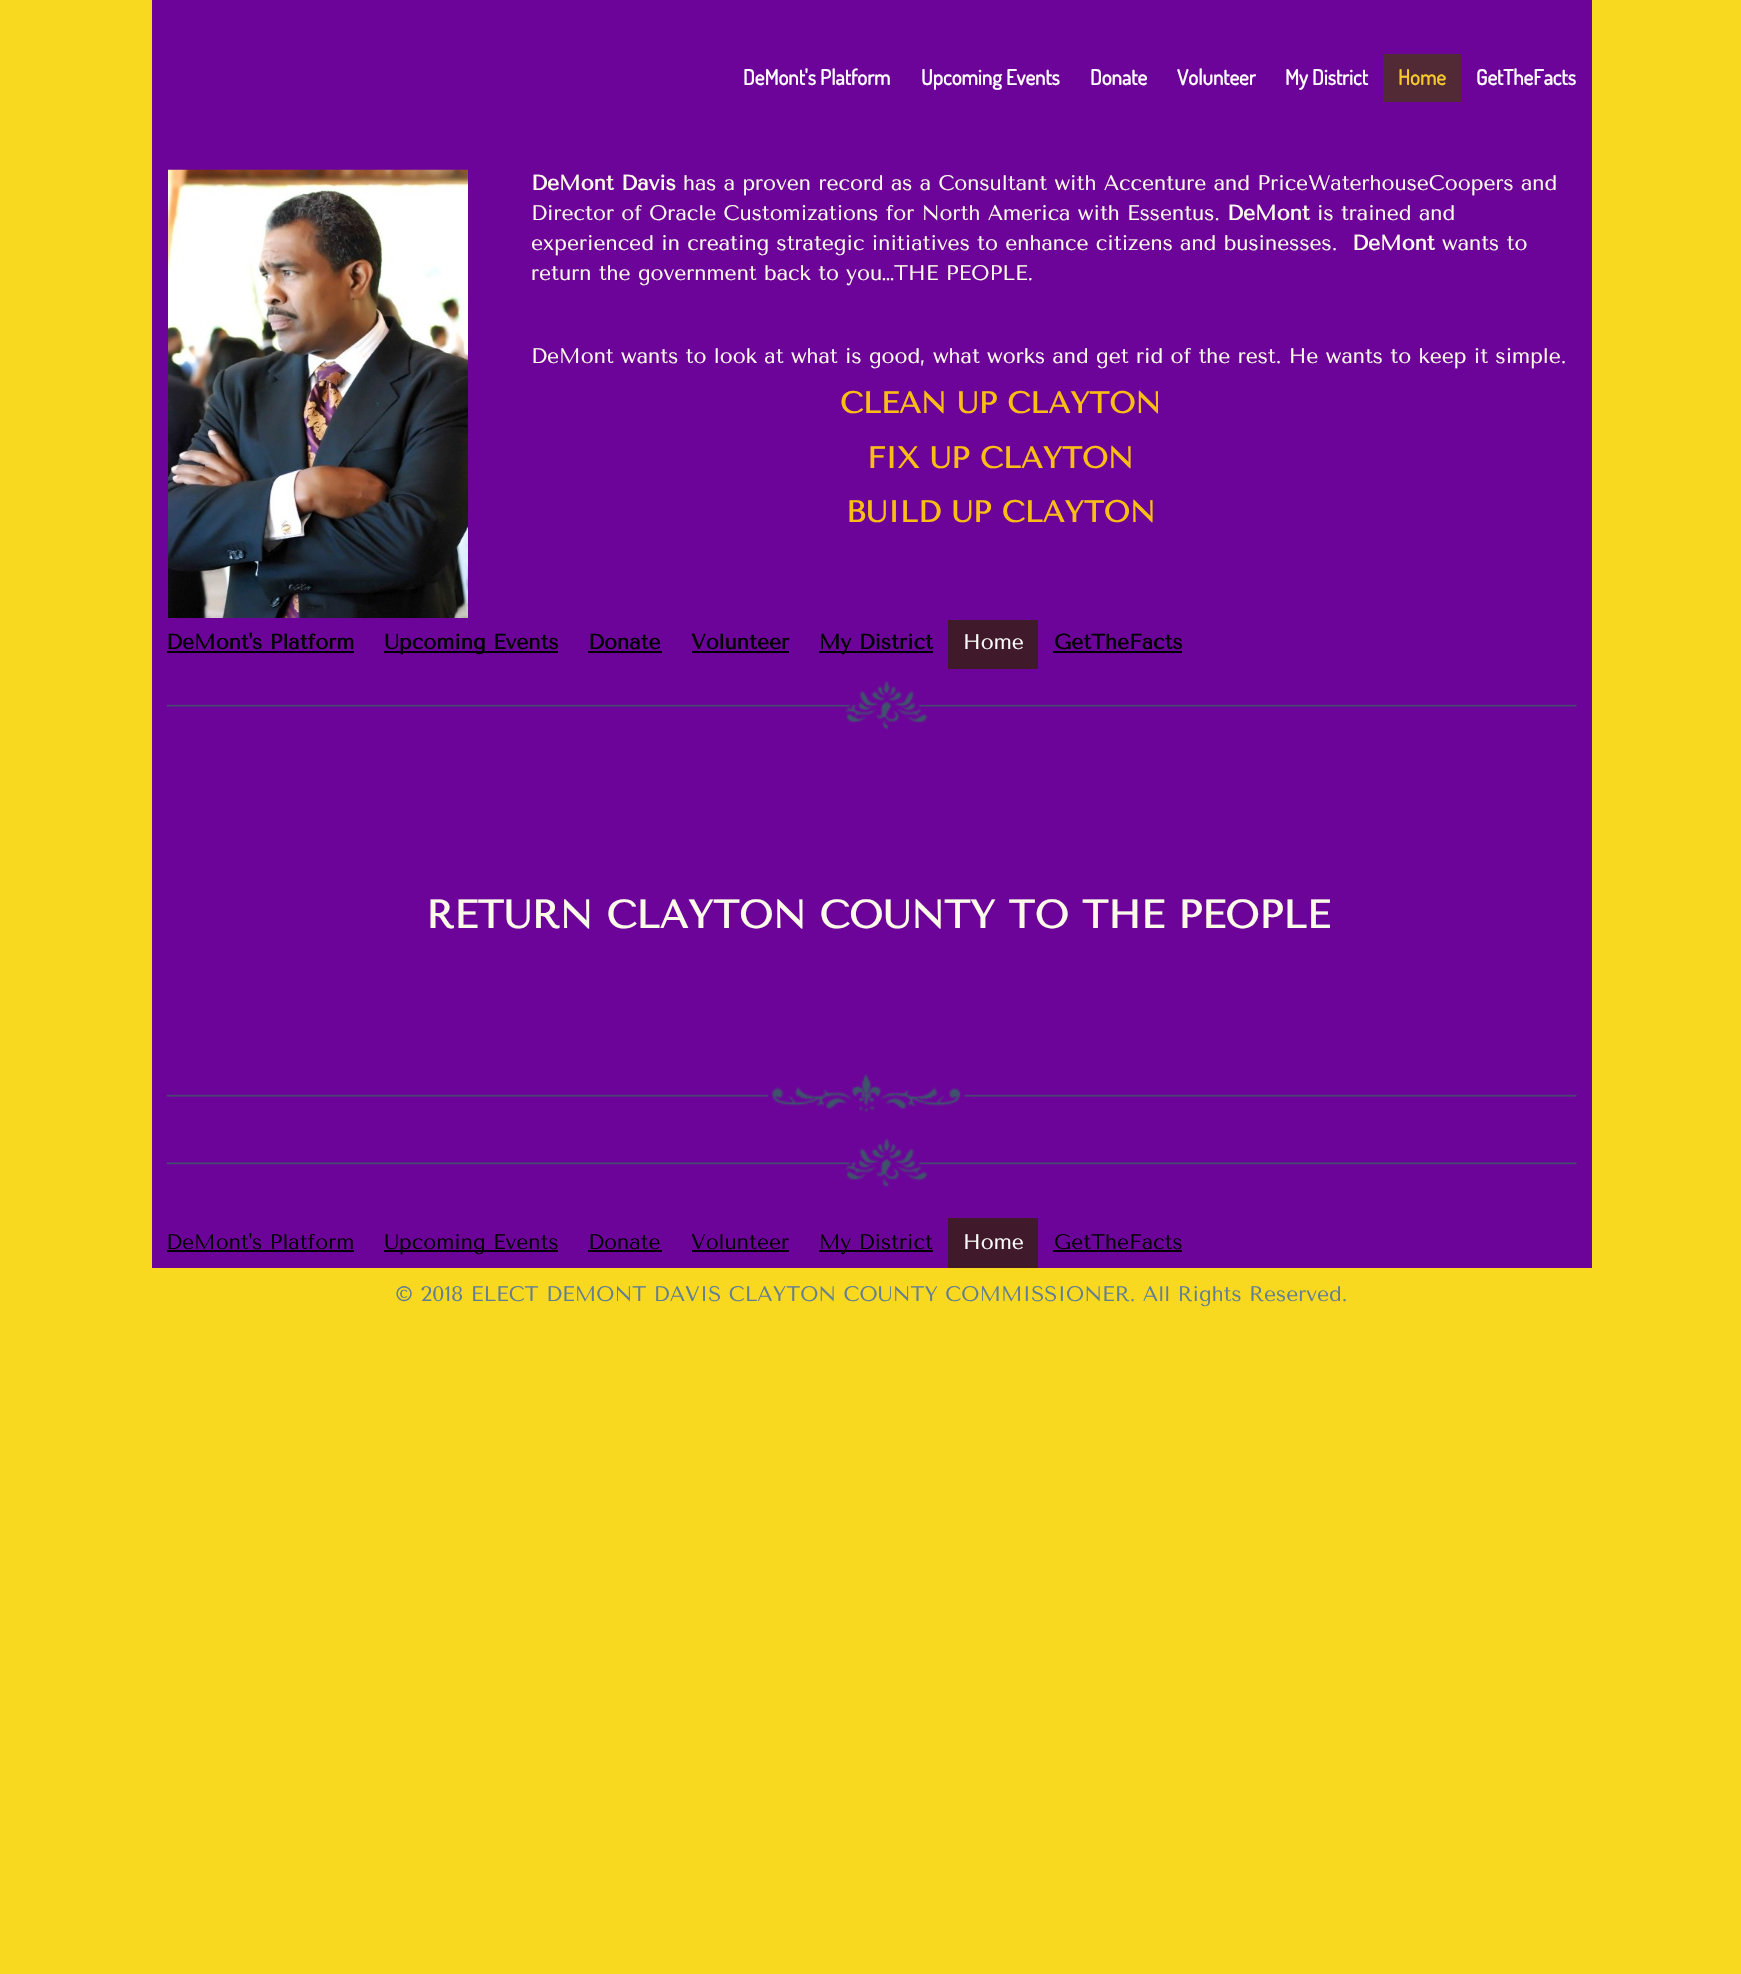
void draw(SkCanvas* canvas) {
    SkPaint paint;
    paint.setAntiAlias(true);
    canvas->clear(0xFFF9D91F);
    paint.setColor(0xFF6D049A);
    canvas->drawRect(SkRect::MakeXYWH(152, 0, 1440, 1268), paint);
    SkFont font1(fontMgr->matchFamilyStyle("Dosis", SkFontStyle::Bold()), 21);
    font1.setSubpixel(true);
    paint.setColor(0xFFFFFFFF);
    canvas->drawString("DeMont's Platform", 743, 85, font1, paint);
    canvas->drawString("Upcoming Events", 921, 85, font1, paint);
    canvas->drawString("Donate", 1090, 85, font1, paint);
    canvas->drawString("Volunteer", 1177, 85, font1, paint);
    canvas->drawString("My District", 1285, 85, font1, paint);
    paint.setColor(0xFF522A36);
    canvas->drawRect(SkRect::MakeXYWH(1383, 54, 78, 48), paint);
    paint.setColor(0xFFF5C92E);
    canvas->drawString("Home", 1398, 85, font1, paint);
    paint.setColor(0xFFFFFFFF);
    canvas->drawString("GetTheFacts", 1476, 85, font1, paint);
    canvas->drawImageRect(SkImages::DeferredFromEncodedData(SkData::MakeFromFileName("img1.png")), SkRect::MakeXYWH(168, 169, 300, 449), SkSamplingOptions());
    SkFont font2(fontMgr->matchFamilyStyle("Tenor Sans", SkFontStyle::Bold()), 21);
    font2.setSubpixel(true);
    paint.setColor(0xFFFCFBE9);
    canvas->drawString("DeMont Davis", 531, 190, font2, paint);
    SkFont font3(fontMgr->matchFamilyStyle("Tenor Sans", SkFontStyle::Normal()), 21);
    font3.setSubpixel(true);
    canvas->drawString("has a proven record as a Consultant with Accenture and PriceWaterhouseCoopers and", 683, 190, font3, paint);
    canvas->drawString("Director of Oracle Customizations for North America with Essentus.", 531, 220, font3, paint);
    canvas->drawString("DeMont", 1227, 220, font2, paint);
    canvas->drawString("is trained and", 1317, 220, font3, paint);
    canvas->drawString("experienced in creating strategic initiatives to enhance citizens and businesses.", 531, 250, font3, paint);
    canvas->drawString("DeMont", 1352, 250, font2, paint);
    canvas->drawString("wants to", 1442, 250, font3, paint);
    canvas->drawString("return the government back to you…THE PEOPLE.", 531, 280, font3, paint);
    canvas->drawString("DeMont wants to look at what is good, what works and get rid of the rest. He wants to keep it simple.", 531, 363, font3, paint);
    SkFont font4(fontMgr->matchFamilyStyle("Tenor Sans", SkFontStyle::Bold()), 30);
    font4.setSubpixel(true);
    paint.setColor(0xFFFABD14);
    canvas->drawString("CLEAN UP CLAYTON", 840, 413, font4, paint);
    canvas->drawString("FIX UP CLAYTON", 867, 468, font4, paint);
    canvas->drawString("BUILD UP CLAYTON", 846, 522, font4, paint);
    paint.setColor(0xFF000000);
    canvas->drawString("DeMont's Platform", 166, 649, font2, paint);
    canvas->drawRect(SkRect::MakeXYWH(167, 651, 187, 2), paint);
    canvas->drawRect(SkRect::MakeXYWH(384, 651, 174, 2), paint);
    canvas->drawString("Upcoming Events", 384, 649, font2, paint);
    canvas->drawString("Donate", 588, 649, font2, paint);
    canvas->drawRect(SkRect::MakeXYWH(588, 651, 74, 2), paint);
    canvas->drawString("Volunteer", 691, 649, font2, paint);
    canvas->drawRect(SkRect::MakeXYWH(692, 651, 97, 2), paint);
    canvas->drawRect(SkRect::MakeXYWH(819, 651, 114, 2), paint);
    canvas->drawString("My District", 819, 649, font2, paint);
    paint.setColor(0xFF401A2A);
    canvas->drawRect(SkRect::MakeXYWH(948, 620, 90, 49), paint);
    paint.setColor(0xFFFFFFFF);
    canvas->drawString("Home", 963, 649, font3, paint);
    paint.setColor(0xFF000000);
    canvas->drawString("GetTheFacts", 1054, 649, font2, paint);
    canvas->drawRect(SkRect::MakeXYWH(1053, 651, 129, 2), paint);
    canvas->drawImageRect(SkImages::DeferredFromEncodedData(SkData::MakeFromFileName("img2.png")), SkRect::MakeXYWH(166, 681, 1411, 49), SkSamplingOptions());
    SkFont font5(fontMgr->matchFamilyStyle("Tenor Sans", SkFontStyle::Bold()), 39);
    font5.setSubpixel(true);
    paint.setColor(0xFFFCFBE9);
    canvas->drawString("RETURN CLAYTON COUNTY TO THE PEOPLE", 426, 928, font5, paint);
    canvas->drawImageRect(SkImages::DeferredFromEncodedData(SkData::MakeFromFileName("img3.png")), SkRect::MakeXYWH(166, 1074, 1411, 38), SkSamplingOptions());
    canvas->drawImageRect(SkImages::DeferredFromEncodedData(SkData::MakeFromFileName("img4.png")), SkRect::MakeXYWH(166, 1138, 1411, 49), SkSamplingOptions());
    paint.setColor(0xFF000000);
    canvas->drawString("DeMont's Platform", 166, 1249, font3, paint);
    canvas->drawRect(SkRect::MakeXYWH(167, 1250, 187, 2), paint);
    canvas->drawRect(SkRect::MakeXYWH(384, 1250, 174, 2), paint);
    canvas->drawString("Upcoming Events", 384, 1249, font3, paint);
    canvas->drawString("Donate", 588, 1249, font3, paint);
    canvas->drawRect(SkRect::MakeXYWH(588, 1250, 74, 2), paint);
    canvas->drawString("Volunteer", 691, 1249, font3, paint);
    canvas->drawRect(SkRect::MakeXYWH(692, 1250, 97, 2), paint);
    canvas->drawRect(SkRect::MakeXYWH(819, 1250, 114, 2), paint);
    canvas->drawString("My District", 819, 1249, font3, paint);
    paint.setColor(0xFF401A2A);
    canvas->drawRect(SkRect::MakeXYWH(948, 1218, 90, 50), paint);
    paint.setColor(0xFFFFFFFF);
    canvas->drawString("Home", 963, 1249, font3, paint);
    paint.setColor(0xFF000000);
    canvas->drawString("GetTheFacts", 1054, 1249, font3, paint);
    canvas->drawRect(SkRect::MakeXYWH(1053, 1250, 129, 2), paint);
    paint.setColor(0xFF627E93);
    canvas->drawString("© 2018 ELECT DEMONT DAVIS CLAYTON COUNTY COMMISSIONER. All Rights Reserved.", 395, 1301, font3, paint);
}
